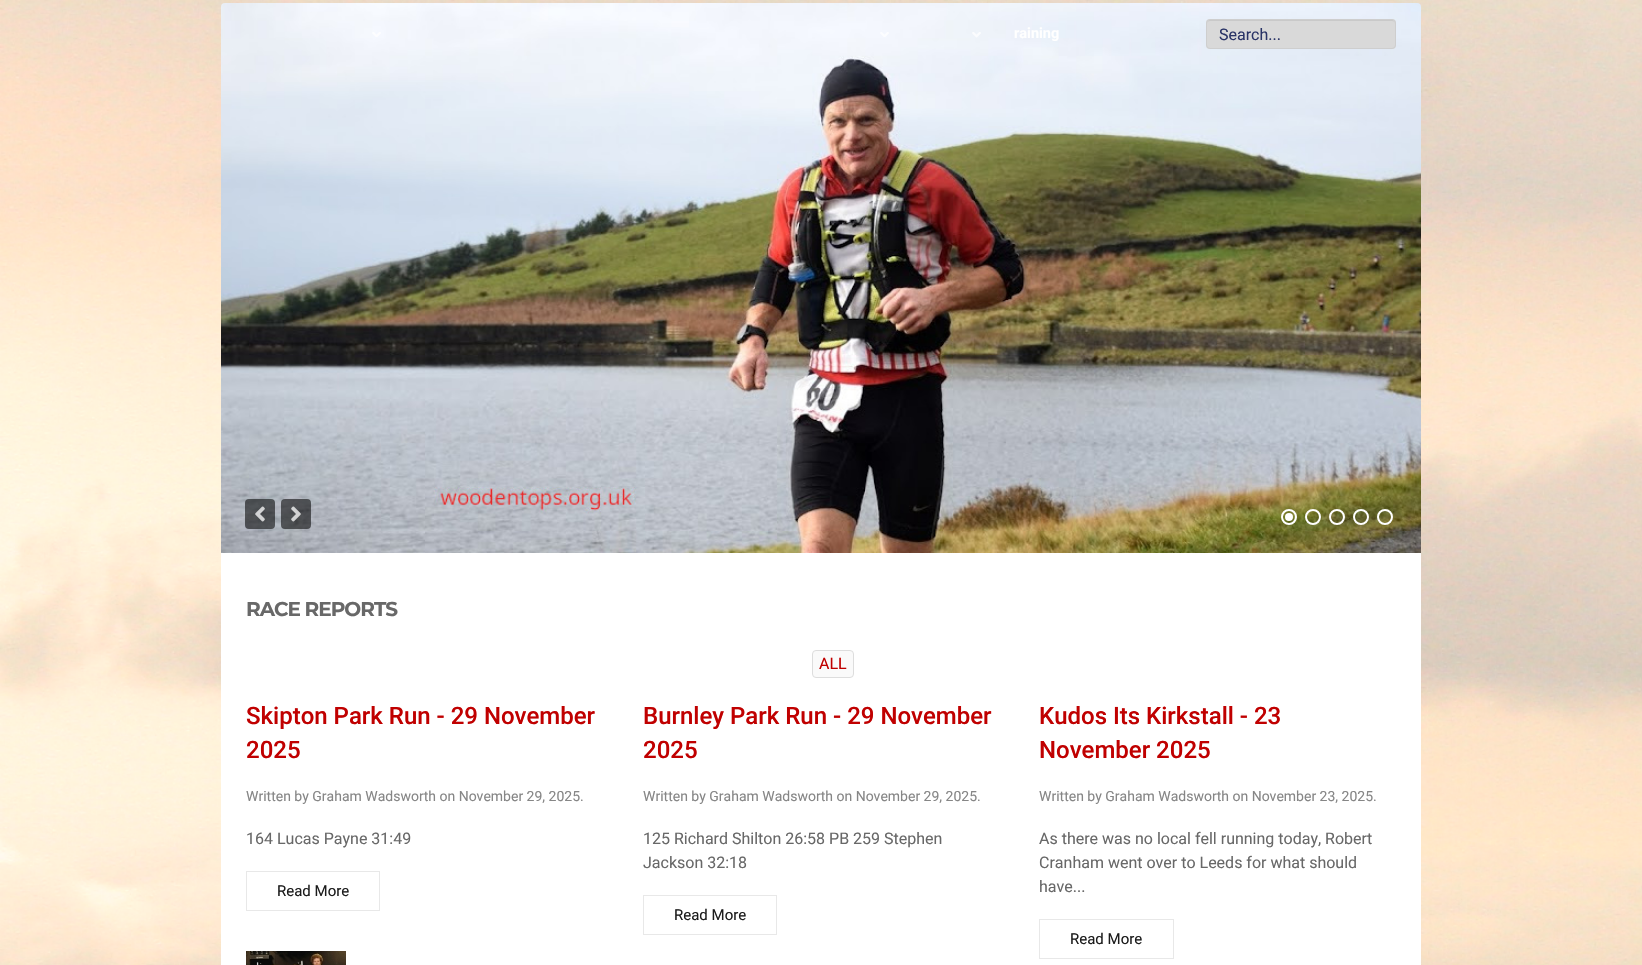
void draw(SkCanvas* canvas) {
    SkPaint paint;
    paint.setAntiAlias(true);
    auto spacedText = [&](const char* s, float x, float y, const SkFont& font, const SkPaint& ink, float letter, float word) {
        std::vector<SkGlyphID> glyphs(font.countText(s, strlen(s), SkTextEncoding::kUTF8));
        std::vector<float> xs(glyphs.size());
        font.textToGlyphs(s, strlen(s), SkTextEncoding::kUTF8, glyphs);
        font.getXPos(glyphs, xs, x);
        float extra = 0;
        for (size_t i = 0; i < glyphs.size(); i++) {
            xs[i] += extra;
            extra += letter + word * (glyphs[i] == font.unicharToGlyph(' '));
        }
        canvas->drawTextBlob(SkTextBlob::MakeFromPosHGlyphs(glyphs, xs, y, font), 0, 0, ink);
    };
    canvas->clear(0xFFFFFFFF);
    canvas->drawImageRect(SkImages::DeferredFromEncodedData(SkData::MakeFromFileName("img1.png")), SkRect::MakeXYWH(0, 0, 1642, 965), SkSamplingOptions());
    canvas->drawImageRect(SkImages::DeferredFromEncodedData(SkData::MakeFromFileName("img2.png")), SkRect::MakeXYWH(221, 3, 1200, 550), SkSamplingOptions());
    paint.setColor(0x8F000000);
    canvas->drawRoundRect(SkRect::MakeXYWH(245, 499, 30, 30), 4, 4, paint);
    canvas->drawImageRect(SkImages::DeferredFromEncodedData(SkData::MakeFromFileName("img3.png")), SkRect::MakeXYWH(255, 506, 10, 16), SkSamplingOptions());
    canvas->drawRoundRect(SkRect::MakeXYWH(281, 499, 30, 30), 4, 4, paint);
    canvas->drawImageRect(SkImages::DeferredFromEncodedData(SkData::MakeFromFileName("img4.png")), SkRect::MakeXYWH(291, 506, 10, 16), SkSamplingOptions());
    paint.setColor(0xFFFFFFFF);
    canvas->drawCircle(1289, 517, 4, paint);
    paint.setStyle(SkPaint::kStroke_Style);
    paint.setStrokeWidth(2);
    canvas->drawCircle(1289, 517, 7, paint);
    canvas->drawCircle(1313, 517, 7, paint);
    canvas->drawCircle(1337, 517, 7, paint);
    canvas->drawCircle(1361, 517, 7, paint);
    canvas->drawCircle(1385, 517, 7, paint);
    canvas->drawImageRect(SkImages::DeferredFromEncodedData(SkData::MakeFromFileName("img5.png")), SkRect::MakeXYWH(372, 32, 9, 5), SkSamplingOptions());
    canvas->drawImageRect(SkImages::DeferredFromEncodedData(SkData::MakeFromFileName("img6.png")), SkRect::MakeXYWH(880, 32, 9, 5), SkSamplingOptions());
    canvas->drawImageRect(SkImages::DeferredFromEncodedData(SkData::MakeFromFileName("img7.png")), SkRect::MakeXYWH(972, 32, 9, 6), SkSamplingOptions());
    SkFont font1(fontMgr->matchFamilyStyle("Roboto", SkFontStyle::Bold()), 14.5f);
    font1.setSubpixel(true);
    paint.setStyle(SkPaint::kFill_Style);
    canvas->drawString("raining", 1014, 38, font1, paint);
    paint.setColor(0xFFD9D9D9);
    canvas->drawRoundRect(SkRect::MakeXYWH(1206, 19, 190, 30), 4, 4, paint);
    paint.setColor(0xFFC9C9C9);
    canvas->drawPath(SkPathBuilder().moveTo(1210, 21).lineTo(1392, 21).cubicTo(1394, 21, 1395, 22, 1395, 24).cubicTo(1395, 22, 1394, 20, 1392, 20).lineTo(1210, 20).cubicTo(1208, 20, 1207, 22, 1207, 24).cubicTo(1207, 22, 1208, 21, 1210, 21).close().detach(), paint);
    paint.setStyle(SkPaint::kStroke_Style);
    paint.setStrokeWidth(1);
    paint.setColor(0xFFCECECE);
    canvas->drawRoundRect(SkRect::MakeXYWH(1206.5f, 19.5f, 189, 29), 3.5f, 3.5f, paint);
    SkFont font2(fontMgr->matchFamilyStyle("Roboto", SkFontStyle::Normal()), 16);
    font2.setSubpixel(true);
    paint.setStyle(SkPaint::kFill_Style);
    paint.setColor(0xFF2A3467);
    canvas->drawString("Search...", 1219, 40, font2, paint);
    paint.setColor(0xFFFFFFFF);
    canvas->drawRect(SkRect::MakeXYWH(221, 553, 1200, 412), paint);
    SkFont font3(fontMgr->matchFamilyStyle("Montserrat", SkFontStyle::Bold()), 20);
    font3.setSubpixel(true);
    paint.setColor(0xFF686868);
    spacedText("RACE REPORTS", 246, 616, font3, paint, -1, 0);
    paint.setColor(0xFFFAFAFA);
    canvas->drawRoundRect(SkRect::MakeXYWH(812.5f, 650.5f, 41, 27), 3.5f, 3.5f, paint);
    paint.setStyle(SkPaint::kStroke_Style);
    paint.setColor(0xFFDDDDDD);
    canvas->drawRoundRect(SkRect::MakeXYWH(812.5f, 650.5f, 41, 27), 3.5f, 3.5f, paint);
    paint.setStyle(SkPaint::kFill_Style);
    paint.setColor(0xFFC00000);
    canvas->drawString("ALL", 819, 669, font2, paint);
    SkFont font4(fontMgr->matchFamilyStyle("Roboto", SkFontStyle(500, SkFontStyle::kNormal_Width, SkFontStyle::kUpright_Slant)), 24);
    font4.setSubpixel(true);
    canvas->drawString("Skipton Park Run - 29 November", 246, 724, font4, paint);
    canvas->drawString("2025", 246, 758, font4, paint);
    SkFont font5(fontMgr->matchFamilyStyle("Roboto", SkFontStyle::Normal()), 14);
    font5.setSubpixel(true);
    paint.setColor(0xFF868686);
    canvas->drawString("Written by Graham Wadsworth on November 29, 2025.", 246, 801, font5, paint);
    paint.setColor(0xFF686868);
    canvas->drawString("164 Lucas Payne 31:49", 246, 844, font2, paint);
    paint.setStyle(SkPaint::kStroke_Style);
    paint.setColor(0xFFE8E8E8);
    canvas->drawRect(SkRect::MakeXYWH(246.5f, 871.5f, 133, 39), paint);
    SkFont font6(fontMgr->matchFamilyStyle("Roboto", SkFontStyle::Normal()), 15);
    font6.setSubpixel(true);
    paint.setStyle(SkPaint::kFill_Style);
    paint.setColor(0xFF1C1C1C);
    canvas->drawString("Read More", 277, 896, font6, paint);
    paint.setColor(0xFFC00000);
    canvas->drawString("Burnley Park Run - 29 November", 643, 724, font4, paint);
    canvas->drawString("2025", 643, 758, font4, paint);
    paint.setColor(0xFF868686);
    canvas->drawString("Written by Graham Wadsworth on November 29, 2025.", 643, 801, font5, paint);
    paint.setColor(0xFF686868);
    canvas->drawString("125 Richard Shilton 26:58 PB 259 Stephen", 643, 844, font2, paint);
    canvas->drawString("Jackson 32:18", 643, 868, font2, paint);
    paint.setStyle(SkPaint::kStroke_Style);
    paint.setColor(0xFFE8E8E8);
    canvas->drawRect(SkRect::MakeXYWH(643.5f, 895.5f, 133, 39), paint);
    paint.setStyle(SkPaint::kFill_Style);
    paint.setColor(0xFF1C1C1C);
    canvas->drawString("Read More", 674, 920, font6, paint);
    paint.setColor(0xFFC00000);
    canvas->drawString("Kudos Its Kirkstall - 23", 1039, 724, font4, paint);
    canvas->drawString("November 2025", 1039, 758, font4, paint);
    paint.setColor(0xFF868686);
    canvas->drawString("Written by Graham Wadsworth on November 23, 2025.", 1039, 801, font5, paint);
    paint.setColor(0xFF686868);
    canvas->drawString("As there was no local fell running today, Robert", 1039, 844, font2, paint);
    canvas->drawString("Cranham went over to Leeds for what should", 1039, 868, font2, paint);
    canvas->drawString("have...", 1039, 892, font2, paint);
    paint.setStyle(SkPaint::kStroke_Style);
    paint.setColor(0xFFE8E8E8);
    canvas->drawRect(SkRect::MakeXYWH(1039.5f, 919.5f, 134, 39), paint);
    paint.setStyle(SkPaint::kFill_Style);
    paint.setColor(0xFF1C1C1C);
    canvas->drawString("Read More", 1070, 944, font6, paint);
    canvas->drawImageRect(SkImages::DeferredFromEncodedData(SkData::MakeFromFileName("img8.png")), SkRect::MakeXYWH(246, 951, 100, 14), SkSamplingOptions());
}
